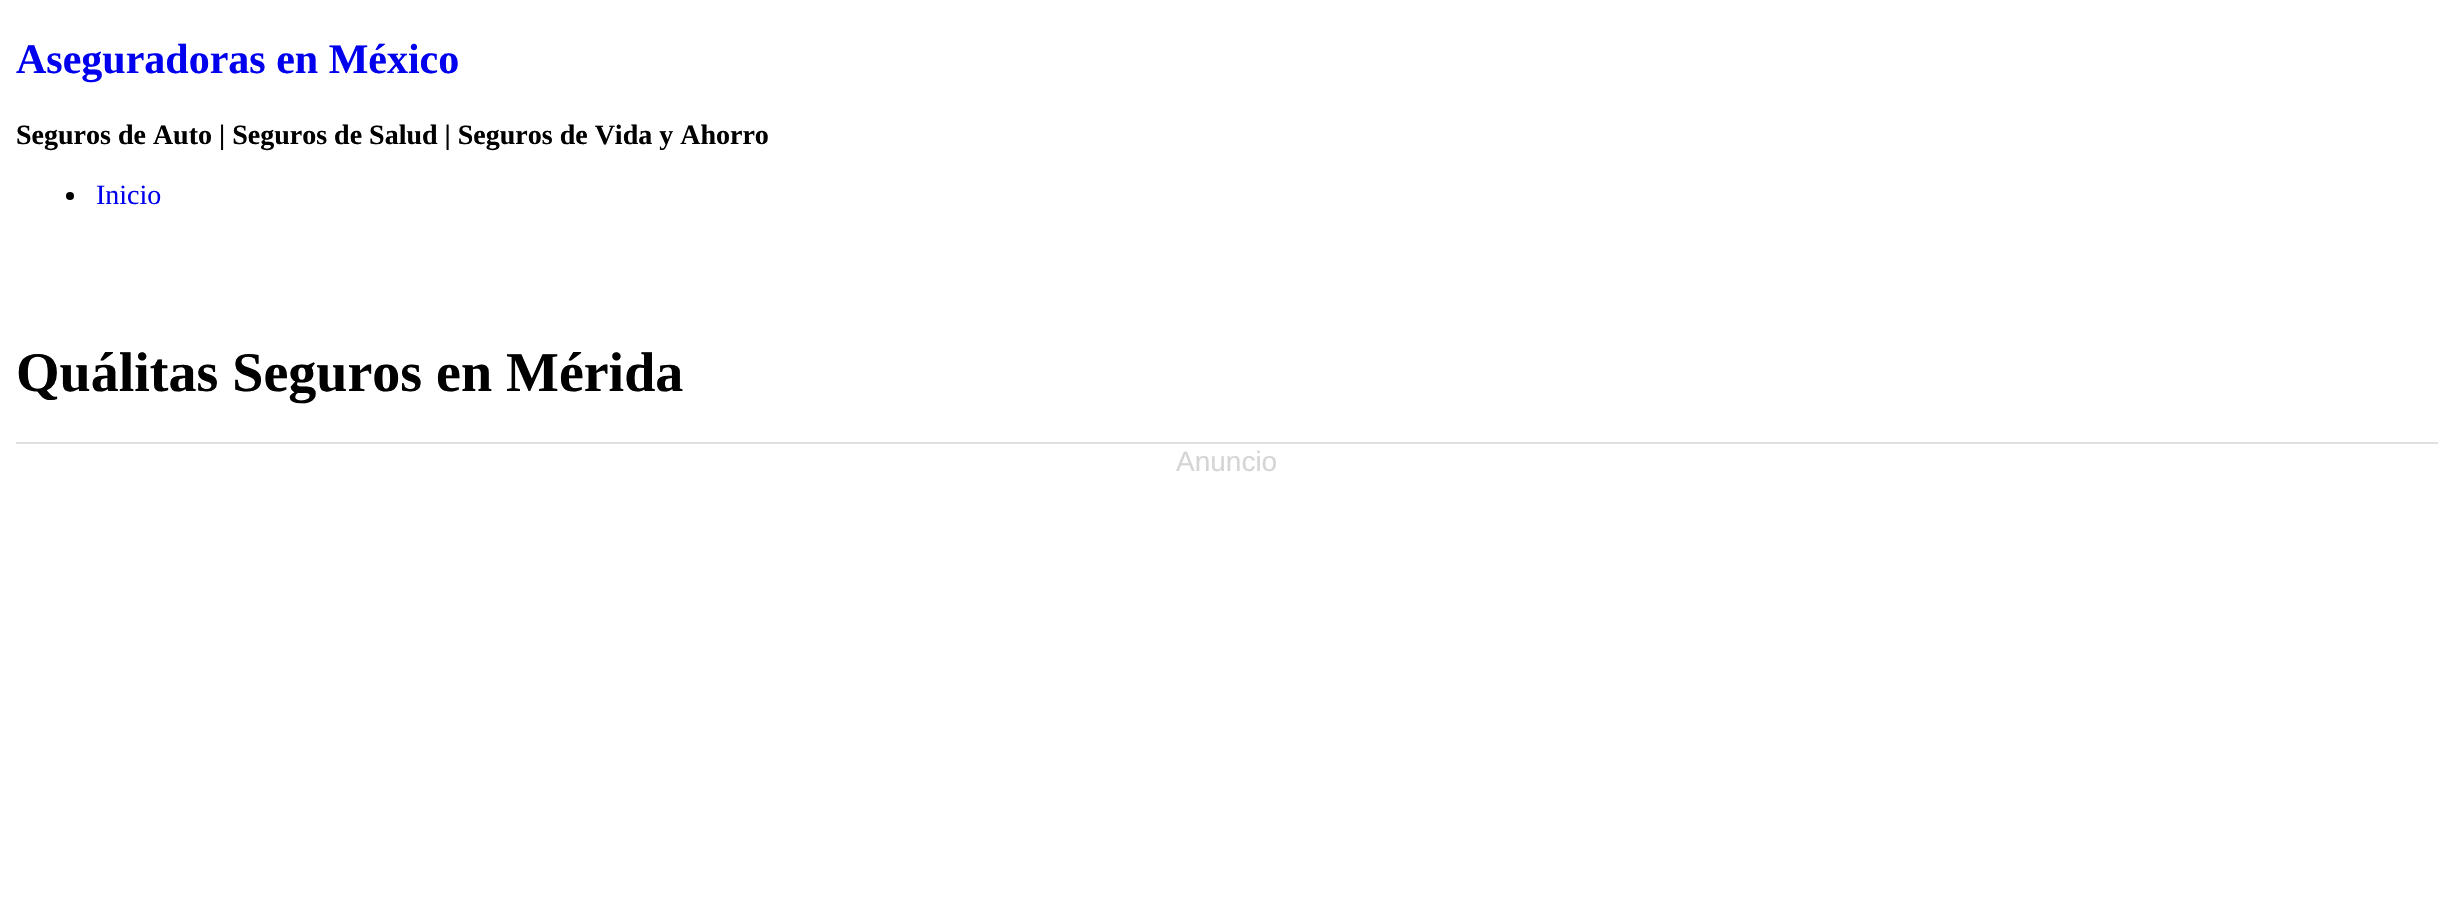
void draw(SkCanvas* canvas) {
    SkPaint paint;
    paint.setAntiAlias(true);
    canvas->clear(0xFFFFFFFF);
    SkFont font1(fontMgr->matchFamilyStyle("Liberation Serif", SkFontStyle::Bold()), 42);
    font1.setSubpixel(true);
    paint.setColor(0xFF0000EE);
    canvas->drawString("Aseguradoras en México", 16, 73, font1, paint);
    SkFont font2(fontMgr->matchFamilyStyle("Liberation Serif", SkFontStyle::Bold()), 28);
    font2.setSubpixel(true);
    paint.setColor(0xFF000000);
    canvas->drawString("Seguros de Auto | Seguros de Salud | Seguros de Vida y Ahorro", 16, 144, font2, paint);
    canvas->drawCircle(70, 196, 4, paint);
    SkFont font3(fontMgr->matchFamilyStyle("Liberation Serif", SkFontStyle::Normal()), 28);
    font3.setSubpixel(true);
    paint.setColor(0xFF0000EE);
    canvas->drawString("Inicio", 96, 204, font3, paint);
    SkFont font4(fontMgr->matchFamilyStyle("Liberation Serif", SkFontStyle::Bold()), 56);
    font4.setSubpixel(true);
    paint.setColor(0xFF000000);
    canvas->drawString("Quálitas Seguros en Mérida", 16, 391, font4, paint);
    paint.setColor(0xFFE0E0E0);
    canvas->drawRect(SkRect::MakeXYWH(16, 442, 2422, 2), paint);
    SkFont font5(fontMgr->matchFamilyStyle("Liberation Sans", SkFontStyle::Normal()), 28);
    font5.setSubpixel(true);
    paint.setColor(0xFFD5D5D5);
    canvas->drawString("Anuncio", 1176, 471, font5, paint);
}
